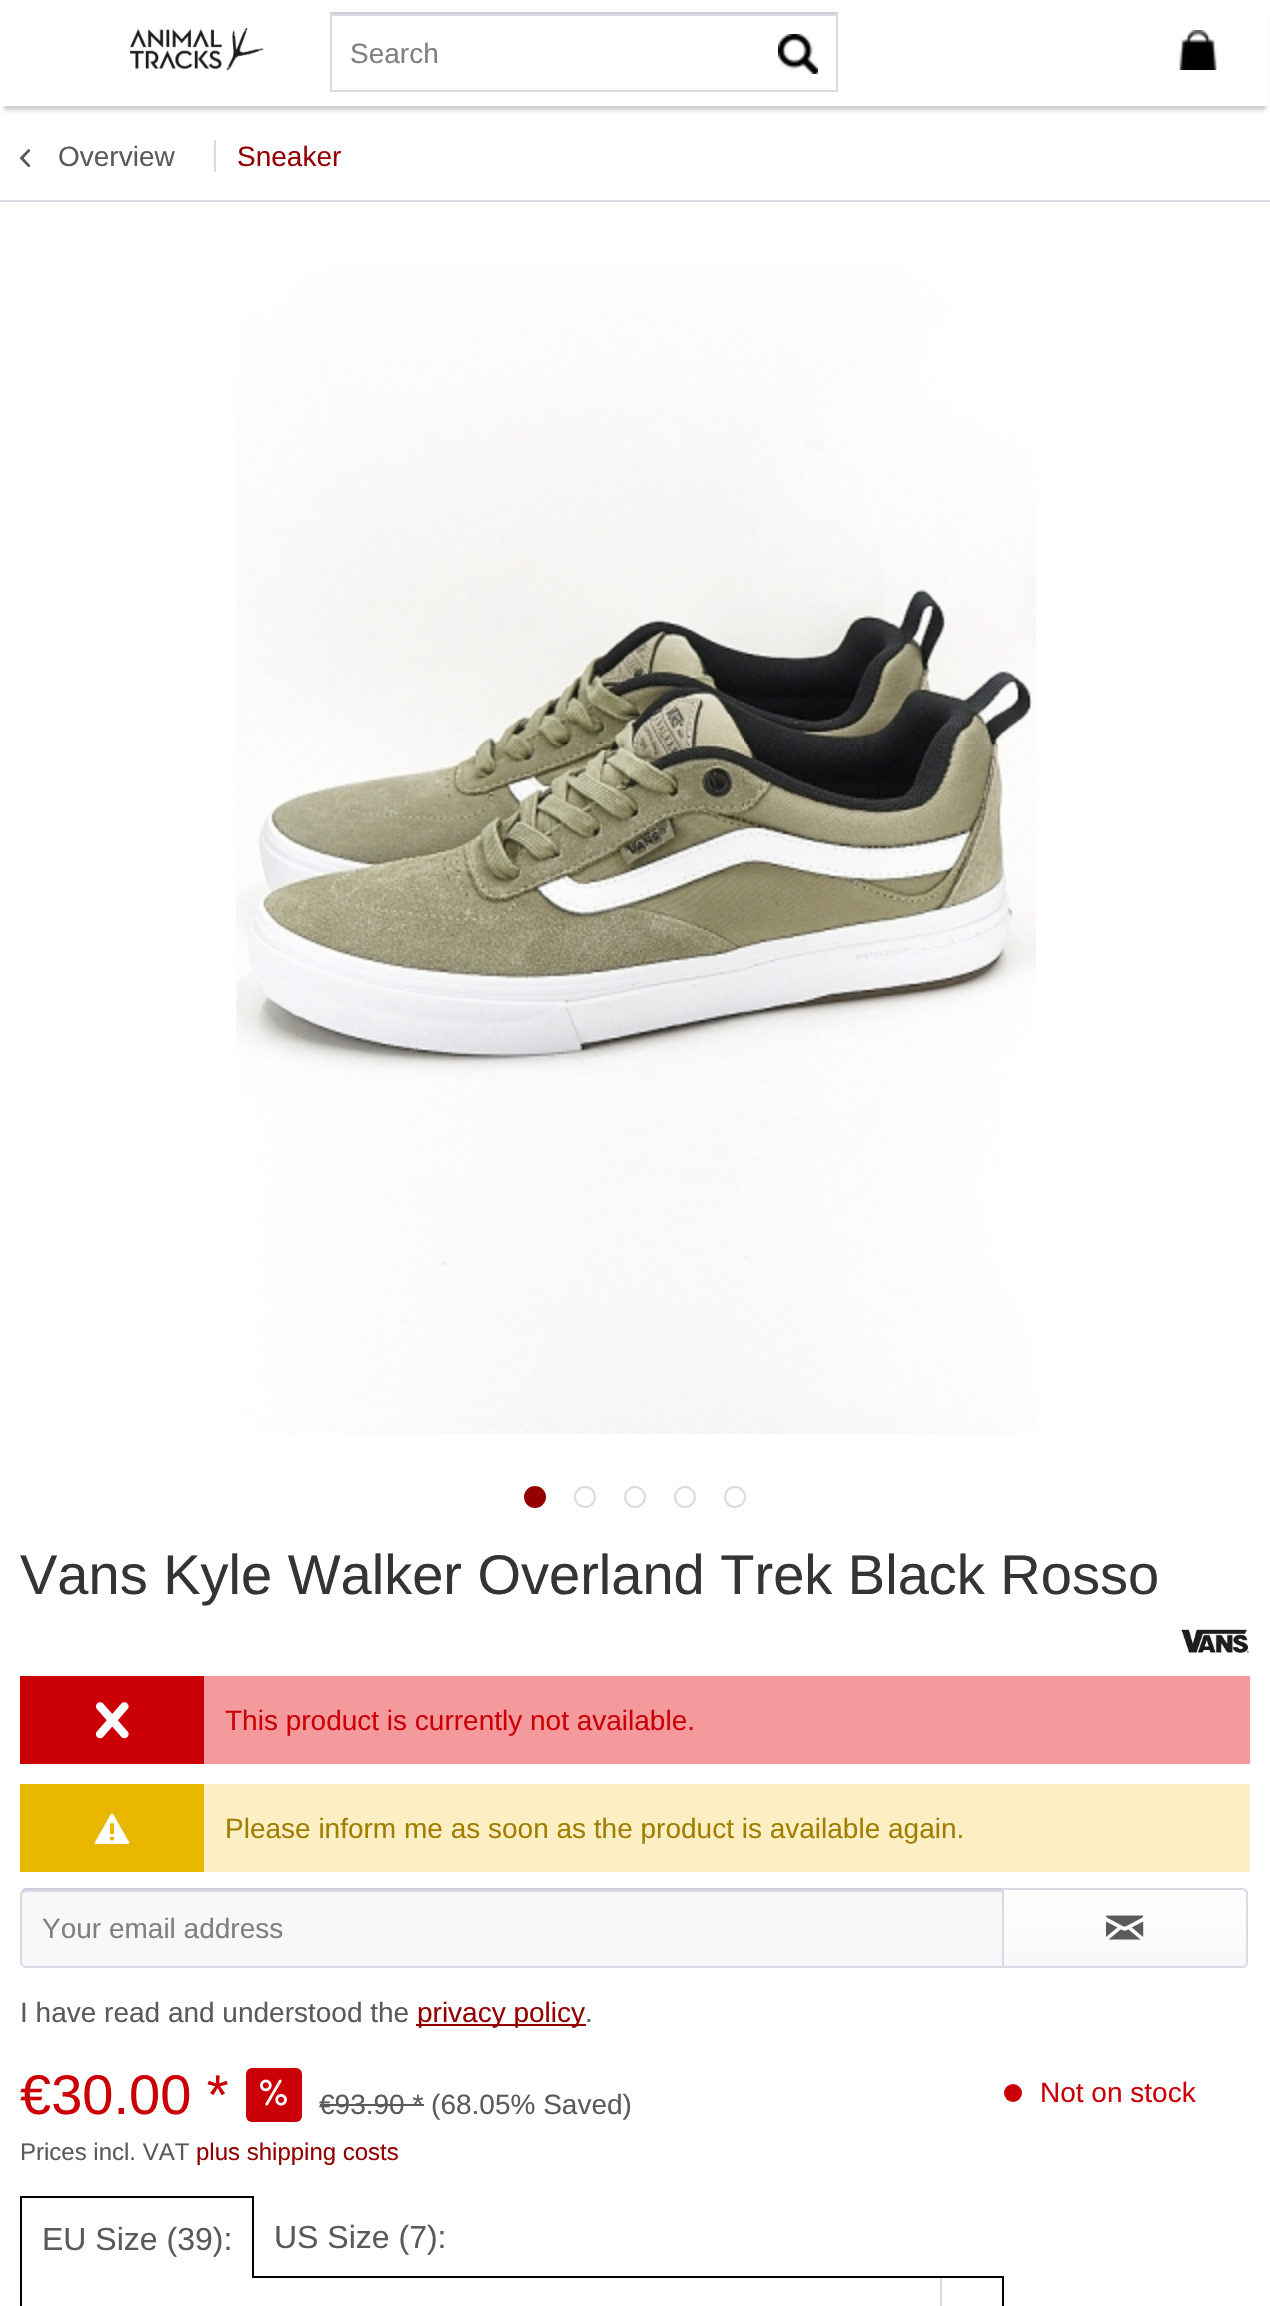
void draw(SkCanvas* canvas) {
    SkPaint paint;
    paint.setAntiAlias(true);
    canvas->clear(0xFFFFFFFF);
    paint.setColor(0xFFCCCCCC);
    paint.setMaskFilter(SkMaskFilter::MakeBlur(kNormal_SkBlurStyle, 2));
    canvas->drawRect(SkRect::MakeXYWH(4, 12, 1262, 98), paint);
    paint.setMaskFilter(nullptr);
    paint.setColor(0xFFFFFFFF);
    canvas->drawRect(SkRect::MakeXYWH(1, 9, 1268, 97), paint);
    canvas->drawImageRect(SkImages::DeferredFromEncodedData(SkData::MakeFromFileName("img1.png")), SkRect::MakeXYWH(130, 27, 134, 44), SkSamplingOptions());
    paint.setColor(0xFFDADAE5);
    canvas->drawRect(SkRect::MakeXYWH(332, 14, 504, 2), paint);
    paint.setColor(0xFFCBCBDB);
    canvas->drawRect(SkRect::MakeXYWH(330, 12, 508, 2), paint);
    paint.setColor(0xFFDADAE5);
    canvas->drawRect(SkRect::MakeXYWH(836, 12, 2, 80), paint);
    canvas->drawRect(SkRect::MakeXYWH(330, 90, 508, 2), paint);
    canvas->drawRect(SkRect::MakeXYWH(330, 12, 2, 80), paint);
    SkFont font1(fontMgr->matchFamilyStyle("Liberation Sans", SkFontStyle::Normal()), 28);
    font1.setSubpixel(true);
    paint.setColor(0xFF808081);
    canvas->drawString("Search", 350, 63, font1, paint);
    canvas->drawImageRect(SkImages::DeferredFromEncodedData(SkData::MakeFromFileName("img2.png")), SkRect::MakeXYWH(778, 34, 40, 40), SkSamplingOptions());
    canvas->drawImageRect(SkImages::DeferredFromEncodedData(SkData::MakeFromFileName("img3.png")), SkRect::MakeXYWH(1179, 30, 38, 40), SkSamplingOptions());
    paint.setColor(0xFFDADAE5);
    canvas->drawRect(SkRect::MakeXYWH(0, 200, 1270, 2), paint);
    canvas->drawImageRect(SkImages::DeferredFromEncodedData(SkData::MakeFromFileName("img4.png")), SkRect::MakeXYWH(20, 149, 11, 19), SkSamplingOptions());
    paint.setColor(0xFF5A5A5B);
    canvas->drawString("Overview", 58, 166, font1, paint);
    paint.setColor(0xFFDADAE5);
    canvas->drawRect(SkRect::MakeXYWH(214, 140, 2, 32), paint);
    paint.setColor(0xFF940000);
    canvas->drawString("Sneaker", 237, 166, font1, paint);
    canvas->drawImageRect(SkImages::DeferredFromEncodedData(SkData::MakeFromFileName("img5.png")), SkRect::MakeXYWH(236, 262, 800, 1172), SkSamplingOptions());
    canvas->drawCircle(535, 1497, 10, paint);
    paint.setStyle(SkPaint::kStroke_Style);
    paint.setStrokeWidth(2);
    canvas->drawCircle(535, 1497, 10, paint);
    paint.setColor(0xFFDADAE5);
    canvas->drawCircle(585, 1497, 10, paint);
    canvas->drawCircle(635, 1497, 10, paint);
    canvas->drawCircle(685, 1497, 10, paint);
    canvas->drawCircle(735, 1497, 10, paint);
    SkFont font2(fontMgr->matchFamilyStyle("Liberation Sans", SkFontStyle::Normal()), 56);
    font2.setSubpixel(true);
    paint.setStyle(SkPaint::kFill_Style);
    paint.setColor(0xFF343435);
    canvas->drawString("Vans Kyle Walker Overland Trek Black Rosso", 20, 1594, font2, paint);
    canvas->drawImageRect(SkImages::DeferredFromEncodedData(SkData::MakeFromFileName("img6.png")), SkRect::MakeXYWH(1181, 1629, 69, 24), SkSamplingOptions());
    paint.setColor(0xFFF4999C);
    canvas->drawRect(SkRect::MakeXYWH(204, 1676, 1046, 88), paint);
    paint.setColor(0xFFCB0006);
    canvas->drawRect(SkRect::MakeXYWH(20, 1676, 184, 88), paint);
    canvas->drawImageRect(SkImages::DeferredFromEncodedData(SkData::MakeFromFileName("img7.png")), SkRect::MakeXYWH(96, 1702, 33, 37), SkSamplingOptions());
    canvas->drawString("This product is currently not available.", 225, 1730, font1, paint);
    paint.setColor(0xFFFCEFC3);
    canvas->drawRect(SkRect::MakeXYWH(204, 1784, 1046, 88), paint);
    paint.setColor(0xFFE9B600);
    canvas->drawRect(SkRect::MakeXYWH(20, 1784, 184, 88), paint);
    canvas->drawImageRect(SkImages::DeferredFromEncodedData(SkData::MakeFromFileName("img8.png")), SkRect::MakeXYWH(94, 1813, 36, 31), SkSamplingOptions());
    paint.setColor(0xFFA27E00);
    canvas->drawString("Please inform me as soon as the product is available again.", 225, 1838, font1, paint);
    paint.setColor(0xFFF8F8FA);
    canvas->drawPath(SkPathBuilder().moveTo(26, 1890).lineTo(1002, 1890).lineTo(1002, 1966).lineTo(26, 1966).cubicTo(24, 1966, 22, 1964, 22, 1962).lineTo(22, 1894).cubicTo(22, 1892, 24, 1890, 26, 1890).close().detach(), paint);
    paint.setColor(0xFFDADAE5);
    canvas->drawPath(SkPathBuilder().moveTo(26, 1892).lineTo(1002, 1892).lineTo(1002, 1890).lineTo(26, 1890).cubicTo(24, 1890, 22, 1892, 22, 1894).lineTo(22, 1896).cubicTo(22, 1894, 24, 1892, 26, 1892).close().detach(), paint);
    paint.setColor(0xFFCBCBDB);
    canvas->drawPath(SkPathBuilder().moveTo(26, 1888).cubicTo(24, 1888, 23, 1889, 22, 1890).lineTo(23, 1891).lineTo(26, 1890).lineTo(1002, 1890).lineTo(1004, 1888).close().detach(), paint);
    paint.setColor(0xFFDADAE5);
    canvas->drawPath(SkPathBuilder().moveTo(1004, 1968).lineTo(1002, 1966).lineTo(26, 1966).lineTo(23, 1965).lineTo(22, 1966).cubicTo(23, 1967, 24, 1968, 26, 1968).close().detach(), paint);
    canvas->drawPath(SkPathBuilder().moveTo(20, 1894).lineTo(20, 1962).cubicTo(20, 1964, 21, 1965, 22, 1966).lineTo(23, 1965).lineTo(22, 1962).lineTo(22, 1894).lineTo(23, 1891).lineTo(22, 1890).cubicTo(21, 1891, 20, 1892, 20, 1894).close().detach(), paint);
    paint.setColor(0xFF808081);
    canvas->drawString("Your email address", 42, 1938, font1, paint);
    {
        const SkColor colors[] = {0xFFFFFFFF, 0xFFF8F8FA};
        const float stops[] = {0, 1};
        const SkPoint ends[] = {{1125, 1890}, {1125, 1966}};
        paint.setShader(SkGradientShader::MakeLinear(ends, colors, stops, 2, SkTileMode::kClamp));
        paint.setAlpha(255);
    }
    canvas->drawPath(SkPathBuilder().moveTo(1004, 1890).lineTo(1242, 1890).cubicTo(1244, 1890, 1246, 1892, 1246, 1894).lineTo(1246, 1962).cubicTo(1246, 1964, 1244, 1966, 1242, 1966).lineTo(1004, 1966).close().detach(), paint);
    paint.setStyle(SkPaint::kStroke_Style);
    paint.setShader(nullptr);
    paint.setColor(0xFFDADAE5);
    canvas->drawPath(SkPathBuilder().moveTo(1003, 1889).lineTo(1242, 1889).cubicTo(1245, 1889, 1247, 1891, 1247, 1894).lineTo(1247, 1962).cubicTo(1247, 1965, 1245, 1967, 1242, 1967).lineTo(1003, 1967).close().detach(), paint);
    canvas->drawImageRect(SkImages::DeferredFromEncodedData(SkData::MakeFromFileName("img9.png")), SkRect::MakeXYWH(1106, 1915, 38, 25), SkSamplingOptions());
    paint.setStyle(SkPaint::kFill_Style);
    paint.setColor(0xFF5A5A5B);
    canvas->drawString("I have read and understood the", 20, 2022, font1, paint);
    paint.setColor(0xFF940000);
    canvas->drawRect(SkRect::MakeXYWH(416, 2024, 170, 2), paint);
    canvas->drawString("privacy policy", 417, 2022, font1, paint);
    paint.setColor(0xFF5A5A5B);
    canvas->drawString(".", 585, 2022, font1, paint);
    paint.setColor(0xFFCB0006);
    canvas->drawString("€30.00 *", 20, 2114, font2, paint);
    canvas->drawRoundRect(SkRect::MakeXYWH(246, 2068, 56, 54), 6, 6, paint);
    canvas->drawImageRect(SkImages::DeferredFromEncodedData(SkData::MakeFromFileName("img10.png")), SkRect::MakeXYWH(260, 2079, 27, 27), SkSamplingOptions());
    paint.setColor(0xFF5A5A5B);
    canvas->drawString("€93.90 * (68.05% Saved)", 319, 2114, font1, paint);
    canvas->drawRect(SkRect::MakeXYWH(320, 2104, 104, 2), paint);
    paint.setColor(0xFFCB0006);
    canvas->drawCircle(1013, 2093, 9, paint);
    canvas->drawString("Not on stock", 1040, 2102, font1, paint);
    SkFont font3(fontMgr->matchFamilyStyle("Liberation Sans", SkFontStyle::Normal()), 24);
    font3.setSubpixel(true);
    paint.setColor(0xFF5A5A5B);
    canvas->drawString("Prices incl. VAT", 20, 2160, font3, paint);
    paint.setColor(0xFF940000);
    canvas->drawString("plus shipping costs", 196, 2160, font3, paint);
    paint.setStyle(SkPaint::kStroke_Style);
    paint.setColor(0xFF000000);
    canvas->drawRect(SkRect::MakeXYWH(21, 2277, 982, 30), paint);
    paint.setStyle(SkPaint::kFill_Style);
    paint.setColor(0xFFFFFFFF);
    canvas->drawRect(SkRect::MakeXYWH(22, 2276, 230, 2), paint);
    paint.setColor(0xFF000000);
    canvas->drawRect(SkRect::MakeXYWH(20, 2196, 234, 2), paint);
    canvas->drawRect(SkRect::MakeXYWH(252, 2196, 2, 82), paint);
    canvas->drawRect(SkRect::MakeXYWH(20, 2196, 2, 82), paint);
    SkFont font4(fontMgr->matchFamilyStyle("Liberation Sans", SkFontStyle::Normal()), 32);
    font4.setSubpixel(true);
    paint.setColor(0xFF5A5A5B);
    canvas->drawString("EU Size (39):", 42, 2250, font4, paint);
    canvas->drawString("US Size (7):", 274, 2248, font4, paint);
    paint.setColor(0xFFDADAE5);
    canvas->drawRect(SkRect::MakeXYWH(940, 2278, 2, 28), paint);
}
